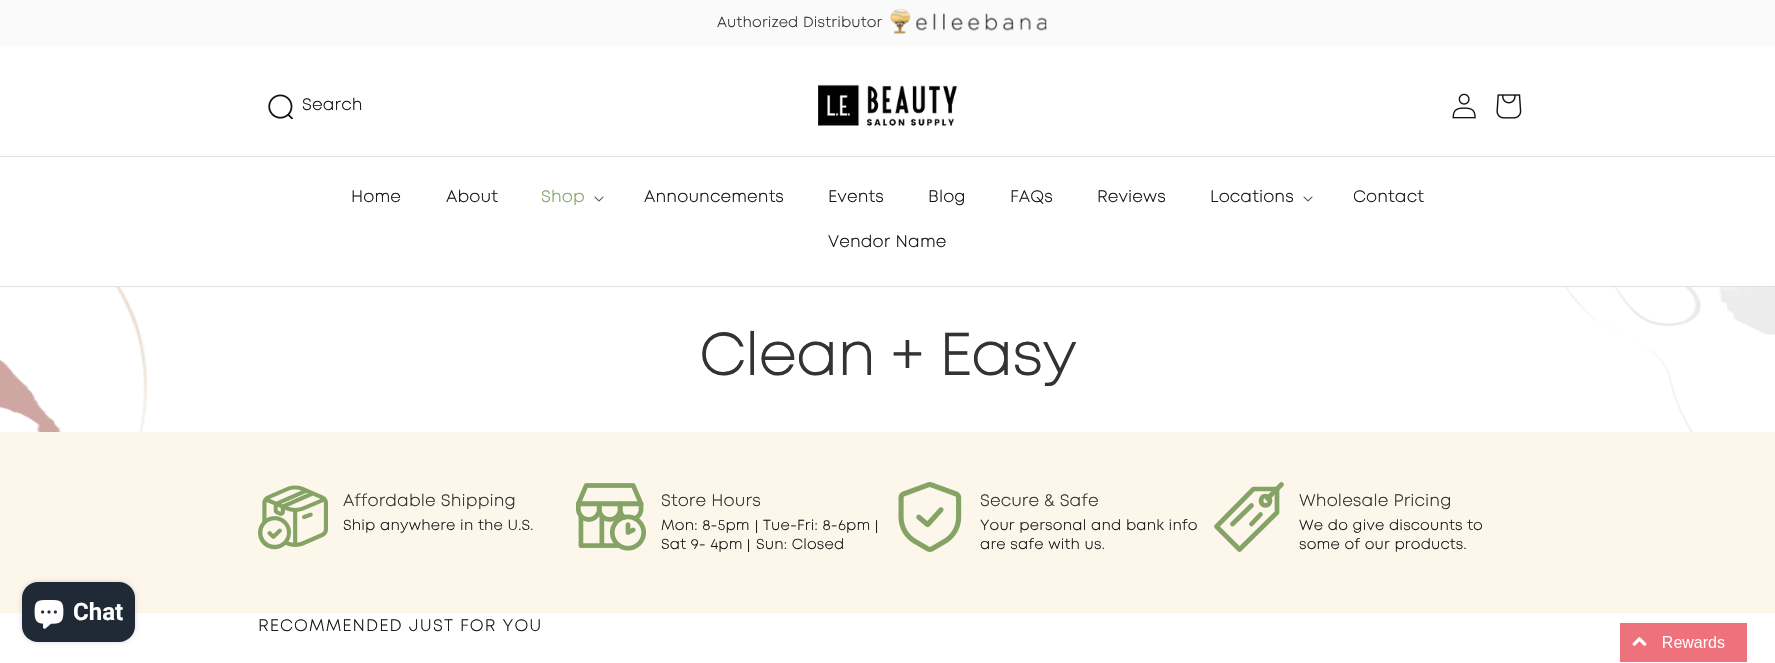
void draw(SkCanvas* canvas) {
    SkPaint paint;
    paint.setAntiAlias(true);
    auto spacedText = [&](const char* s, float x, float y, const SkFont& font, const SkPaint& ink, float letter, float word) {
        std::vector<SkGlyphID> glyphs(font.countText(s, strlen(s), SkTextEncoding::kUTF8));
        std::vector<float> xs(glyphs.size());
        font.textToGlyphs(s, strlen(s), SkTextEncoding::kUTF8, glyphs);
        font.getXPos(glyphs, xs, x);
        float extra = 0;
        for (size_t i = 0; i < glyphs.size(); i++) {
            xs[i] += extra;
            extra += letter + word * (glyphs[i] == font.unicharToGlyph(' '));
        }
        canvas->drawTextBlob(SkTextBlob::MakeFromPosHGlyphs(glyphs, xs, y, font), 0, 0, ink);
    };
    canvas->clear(0xFFFFFFFF);
    paint.setColor(0xFFFAFAFA);
    canvas->drawRect(SkRect::MakeXYWH(0, 0, 1775, 46), paint);
    SkFont font1(fontMgr->matchFamilyStyle("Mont", SkFontStyle::Bold()), 14);
    font1.setSubpixel(true);
    paint.setColor(0xFF333333);
    spacedText("Authorized Distributor", 717, 27, font1, paint, 0.6f, 0);
    canvas->drawImageRect(SkImages::DeferredFromEncodedData(SkData::MakeFromFileName("img1.png")), SkRect::MakeXYWH(890, 8, 157, 26), SkSamplingOptions());
    paint.setColor(0xFFE0E0E0);
    canvas->drawRect(SkRect::MakeXYWH(0, 286, 1775, 1), paint);
    canvas->drawImageRect(SkImages::DeferredFromEncodedData(SkData::MakeFromFileName("img2.png")), SkRect::MakeXYWH(268, 94, 25, 25), SkSamplingOptions());
    SkFont font2(fontMgr->matchFamilyStyle("Mont", SkFontStyle::Bold()), 16);
    font2.setSubpixel(true);
    paint.setColor(0xFF181818);
    spacedText("Search", 302, 110, font2, paint, 0.6f, 0);
    canvas->drawImageRect(SkImages::DeferredFromEncodedData(SkData::MakeFromFileName("img3.png")), SkRect::MakeXYWH(818, 84, 140, 42), SkSamplingOptions());
    canvas->drawImageRect(SkImages::DeferredFromEncodedData(SkData::MakeFromFileName("img4.png")), SkRect::MakeXYWH(1452, 93, 24, 26), SkSamplingOptions());
    canvas->drawImageRect(SkImages::DeferredFromEncodedData(SkData::MakeFromFileName("img5.png")), SkRect::MakeXYWH(1496, 94, 26, 25), SkSamplingOptions());
    paint.setColor(0xFFE0E0E0);
    canvas->drawRect(SkRect::MakeXYWH(0, 156, 1775, 1), paint);
    paint.setColor(0xFF181818);
    spacedText("Home", 351, 202, font2, paint, 0.6f, 0);
    spacedText("About", 446, 202, font2, paint, 0.6f, 0);
    paint.setColor(0xFF85A366);
    spacedText("Shop", 541, 202, font2, paint, 0.6f, 0);
    canvas->drawImageRect(SkImages::DeferredFromEncodedData(SkData::MakeFromFileName("img6.png")), SkRect::MakeXYWH(594, 196, 10, 6), SkSamplingOptions());
    paint.setColor(0xFF181818);
    spacedText("Announcements", 644, 202, font2, paint, 0.6f, 0);
    spacedText("Events", 828, 202, font2, paint, 0.6f, 0);
    spacedText("Blog", 928, 202, font2, paint, 0.6f, 0);
    spacedText("FAQs", 1010, 202, font2, paint, 0.6f, 0);
    spacedText("Reviews", 1097, 202, font2, paint, 0.6f, 0);
    spacedText("Locations", 1210, 202, font2, paint, 0.6f, 0);
    canvas->drawImageRect(SkImages::DeferredFromEncodedData(SkData::MakeFromFileName("img6.png")), SkRect::MakeXYWH(1303, 196, 10, 6), SkSamplingOptions());
    spacedText("Contact", 1353, 202, font2, paint, 0.6f, 0);
    spacedText("Vendor Name", 828, 247, font2, paint, 0.6f, 0);
    paint.setColor(0xFFFCF6EB);
    canvas->drawRect(SkRect::MakeXYWH(0, 432, 1775, 181), paint);
    paint.setColor(0x26000000);
    paint.setMaskFilter(SkMaskFilter::MakeBlur(kNormal_SkBlurStyle, 2.5f));
    canvas->drawRoundRect(SkRect::MakeXYWH(22, 582, 113, 60), 16, 16, paint);
    paint.setMaskFilter(nullptr);
    paint.setColor(0xFF202A36);
    canvas->drawRoundRect(SkRect::MakeXYWH(22, 582, 113, 60), 16, 16, paint);
    canvas->drawImageRect(SkImages::DeferredFromEncodedData(SkData::MakeFromFileName("img7.png")), SkRect::MakeXYWH(34, 600, 30, 29), SkSamplingOptions());
    SkFont font3(fontMgr->matchFamilyStyle("Roboto", SkFontStyle::Bold()), 24);
    font3.setSubpixel(true);
    paint.setColor(0xFFFFFFFF);
    canvas->drawString("Chat", 73, 620, font3, paint);
    canvas->drawImageRect(SkImages::DeferredFromEncodedData(SkData::MakeFromFileName("img8.png")), SkRect::MakeXYWH(0, 287, 1775, 145), SkSamplingOptions());
    SkFont font4(fontMgr->matchFamilyStyle("Mont", SkFontStyle::Bold()), 58);
    font4.setSubpixel(true);
    paint.setColor(0xFF333333);
    spacedText("Clean + Easy", 699, 375, font4, paint, 0.6f, 0);
    canvas->drawImageRect(SkImages::DeferredFromEncodedData(SkData::MakeFromFileName("img9.png")), SkRect::MakeXYWH(258, 485, 70, 65), SkSamplingOptions());
    spacedText("Affordable Shipping", 343, 506, font2, paint, 0.6f, 0);
    paint.setColor(0xFF181818);
    spacedText("Ship anywhere in the U.S.", 343, 530, font1, paint, 0.6f, 0);
    canvas->drawImageRect(SkImages::DeferredFromEncodedData(SkData::MakeFromFileName("img10.png")), SkRect::MakeXYWH(576, 483, 70, 68), SkSamplingOptions());
    paint.setColor(0xFF333333);
    spacedText("Store Hours", 661, 506, font2, paint, 0.6f, 0);
    paint.setColor(0xFF181818);
    spacedText("Mon: 8-5pm", 661, 530, font1, paint, 0.6f, 0);
    SkFont font5(fontMgr->matchFamilyStyle("Liberation Serif", SkFontStyle::Bold()), 14);
    font5.setSubpixel(true);
    spacedText("|", 755, 530, font5, paint, 0.6f, 0);
    spacedText("Tue-Fri: 8-6pm", 763, 530, font1, paint, 0.6f, 0);
    spacedText("|", 875, 530, font5, paint, 0.6f, 0);
    spacedText("Sat 9- 4pm", 661, 549, font1, paint, 0.6f, 0);
    spacedText("|", 747, 549, font5, paint, 0.6f, 0);
    spacedText("Sun: Closed", 756, 549, font1, paint, 0.6f, 0);
    canvas->drawImageRect(SkImages::DeferredFromEncodedData(SkData::MakeFromFileName("img11.png")), SkRect::MakeXYWH(898, 482, 64, 70), SkSamplingOptions());
    paint.setColor(0xFF333333);
    spacedText("Secure & Safe", 980, 506, font2, paint, 0.6f, 0);
    paint.setColor(0xFF181818);
    spacedText("Your personal and bank info", 980, 530, font1, paint, 0.6f, 0);
    spacedText("are safe with us.", 980, 549, font1, paint, 0.6f, 0);
    paint.setStyle(SkPaint::kStroke_Style);
    paint.setStrokeWidth(4.7f);
    paint.setStrokeCap(SkPaint::kRound_Cap);
    paint.setStrokeJoin(SkPaint::kRound_Join);
    paint.setColor(0xFF84A364);
    canvas->drawPath(SkPathBuilder().moveTo(1216.5f, 526.5f).lineTo(1253.5f, 489).lineTo(1277, 489).lineTo(1277, 512.5f).lineTo(1239.5f, 549.5f).close().detach(), paint);
    canvas->drawPath(SkPathBuilder().moveTo(1265.5f, 505.5f).cubicTo(1271.5f, 505.5f, 1271.5f, 496, 1265.5f, 496).cubicTo(1259.5f, 496, 1259.5f, 505.5f, 1265.5f, 505.5f).close().moveTo(1267.5f, 498.5f).lineTo(1281.5f, 484.5f).moveTo(1251.5f, 505.5f).lineTo(1232.5f, 524).moveTo(1260.5f, 514.5f).lineTo(1251.5f, 524).detach(), paint);
    paint.setStyle(SkPaint::kFill_Style);
    paint.setColor(0xFF333333);
    spacedText("Wholesale Pricing", 1299, 506, font2, paint, 0.6f, 0);
    paint.setColor(0xFF181818);
    spacedText("We do give discounts to", 1299, 530, font1, paint, 0.6f, 0);
    spacedText("some of our products.", 1299, 549, font1, paint, 0.6f, 0);
    spacedText("RECOMMENDED JUST FOR YOU", 258, 631, font2, paint, 1.6f, 0);
    canvas->drawImageRect(SkImages::DeferredFromEncodedData(SkData::MakeFromFileName("img12.png")), SkRect::MakeXYWH(1620, 623, 127, 39), SkSamplingOptions());
}
